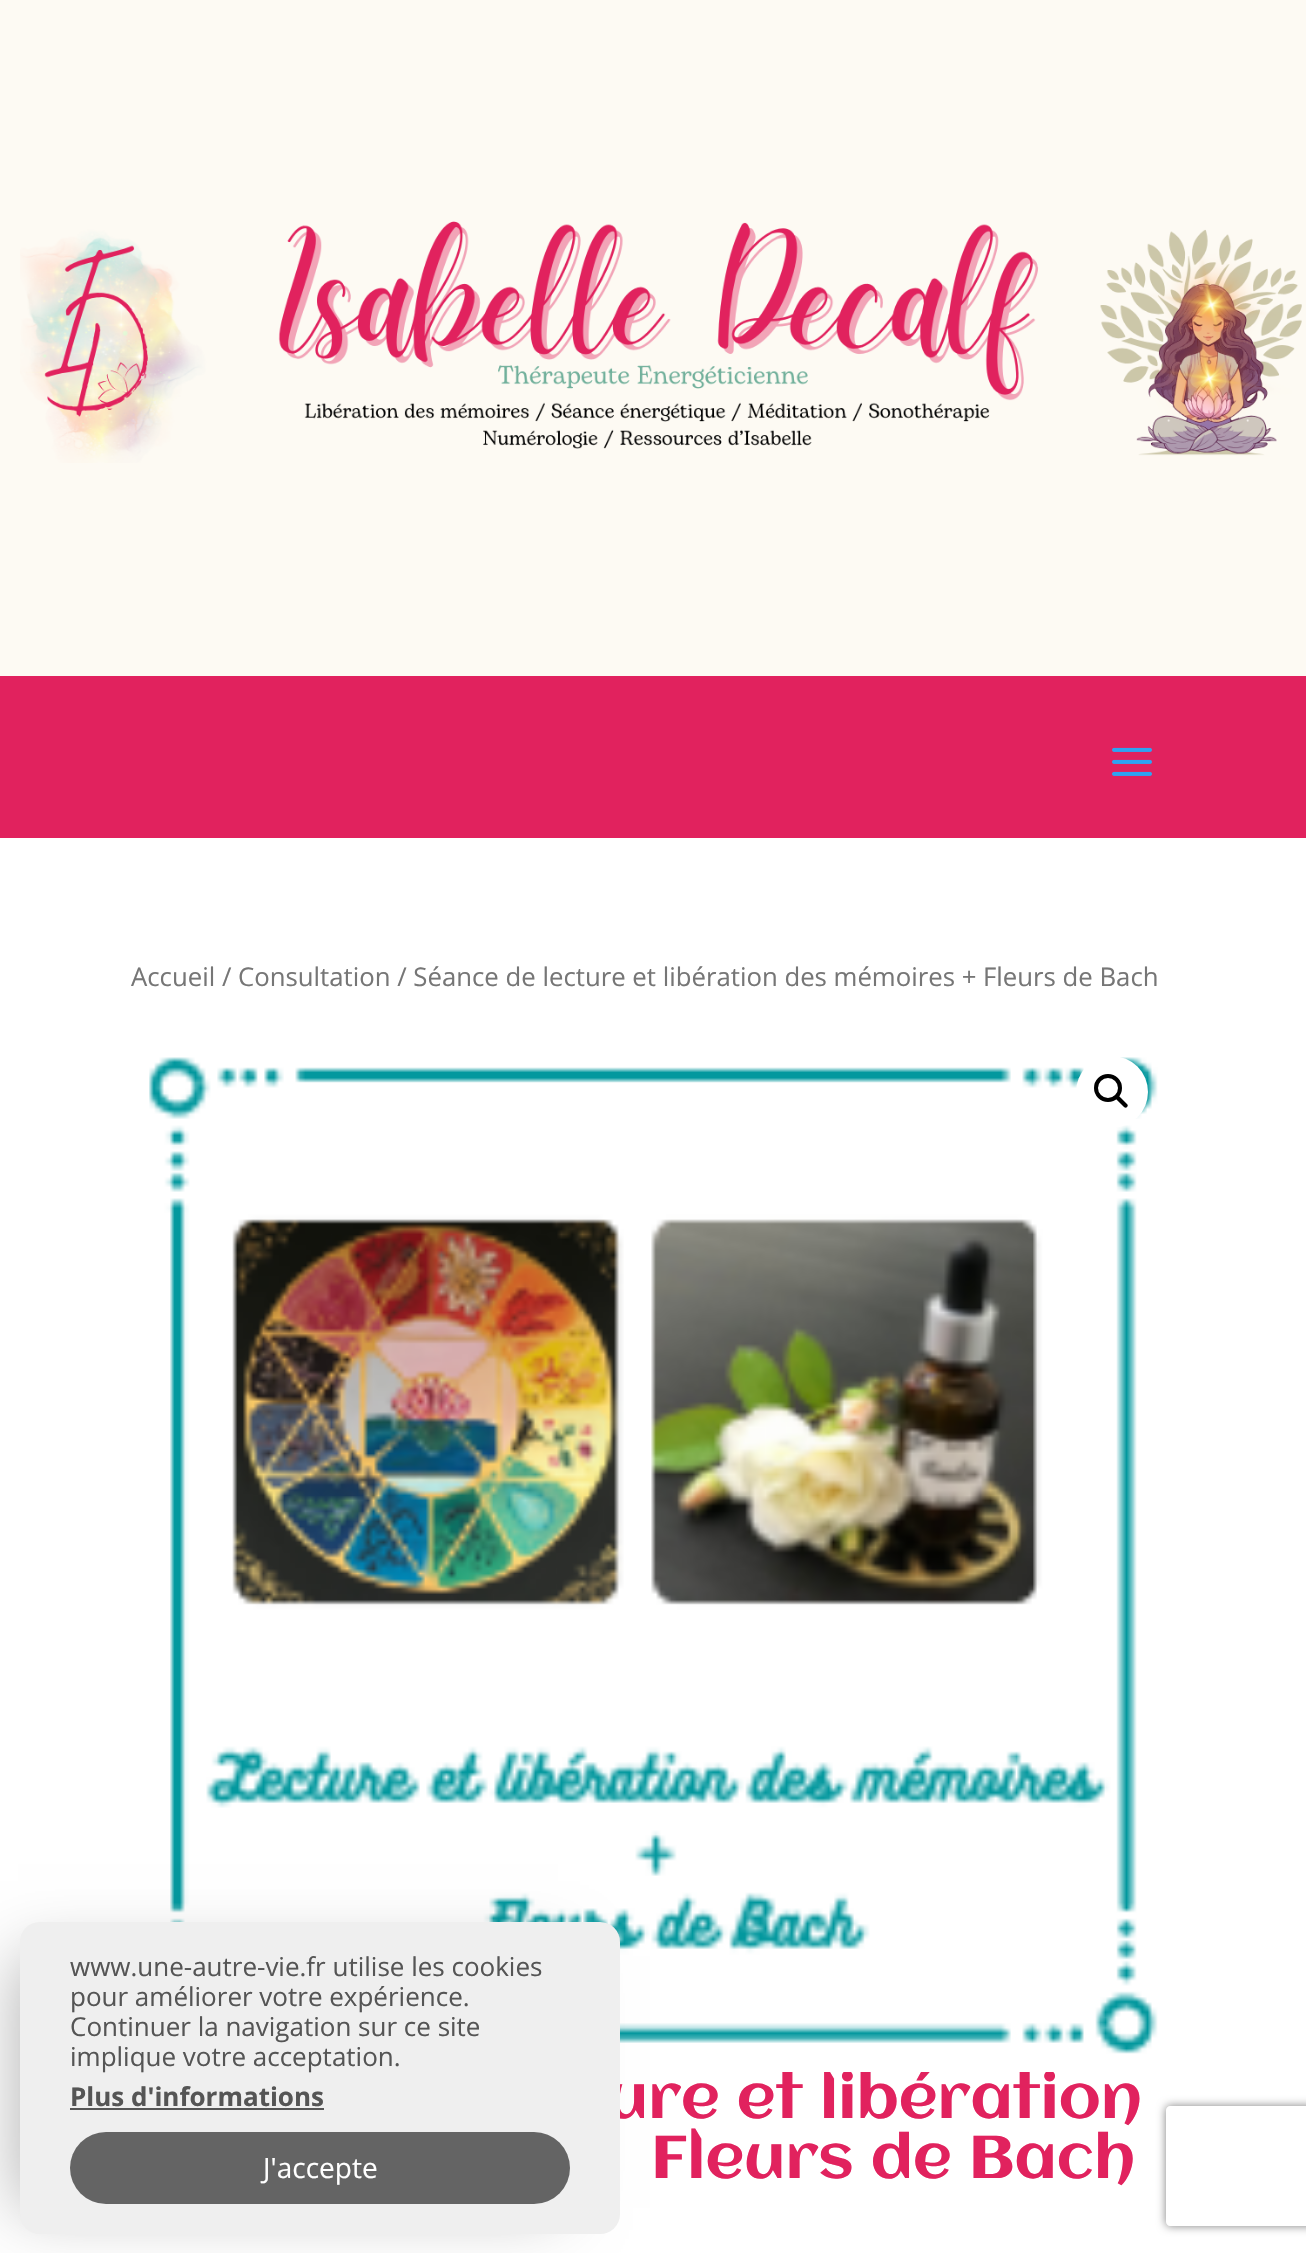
void draw(SkCanvas* canvas) {
    SkPaint paint;
    paint.setAntiAlias(true);
    canvas->clear(0xFFFFFFFF);
    paint.setColor(0xFFFDFAF3);
    canvas->drawRect(SkRect::MakeXYWH(0, 0, 1306, 676), paint);
    canvas->drawImageRect(SkImages::DeferredFromEncodedData(SkData::MakeFromFileName("img1.png")), SkRect::MakeXYWH(20, 221, 1282, 242), SkSamplingOptions());
    paint.setColor(0xFFE1225E);
    canvas->drawRect(SkRect::MakeXYWH(0, 676, 1306, 162), paint);
    canvas->drawImageRect(SkImages::DeferredFromEncodedData(SkData::MakeFromFileName("img2.png")), SkRect::MakeXYWH(1112, 747, 40, 29), SkSamplingOptions());
    SkFont font1(fontMgr->matchFamilyStyle("Open Sans", SkFontStyle::Normal()), 25.75f);
    font1.setSubpixel(true);
    paint.setColor(0xFF767676);
    canvas->drawString("Accueil / Consultation / Séance de lecture et libération des mémoires + Fleurs de Bach", 131, 986, font1, paint);
    SkFont font2(fontMgr->matchFamilyStyle("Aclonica", SkFontStyle::Normal()), 60);
    font2.setSubpixel(true);
    paint.setColor(0xFFE1225E);
    canvas->drawString("ure et libération", 607, 2118, font2, paint);
    canvas->drawImageRect(SkImages::DeferredFromEncodedData(SkData::MakeFromFileName("img3.png")), SkRect::MakeXYWH(149, 1057, 1009, 1015), SkSamplingOptions());
    paint.setColor(0xFFFFFFFF);
    canvas->drawCircle(1112, 1092, 36, paint);
    paint.setStyle(SkPaint::kStroke_Style);
    paint.setStrokeWidth(4);
    paint.setColor(0xFF000000);
    canvas->drawCircle(1108, 1088, 12, paint);
    paint.setStyle(SkPaint::kFill_Style);
    canvas->drawPath(SkPathBuilder().moveTo(1115.5f, 1095.5f).cubicTo(1116.5f, 1095, 1118, 1095, 1118.5f, 1095.5f).lineTo(1127, 1104).cubicTo(1128, 1105, 1128, 1106, 1127, 1107).cubicTo(1126.5f, 1108, 1125, 1108, 1124, 1107).lineTo(1115.5f, 1098.5f).cubicTo(1115, 1097.5f, 1115, 1096.5f, 1115.5f, 1095.5f).close().detach(), paint);
    paint.setColor(0xFFE1225E);
    canvas->drawString("Fleurs de Bach", 651, 2178, font2, paint);
    paint.setColor(0x4D000000);
    paint.setMaskFilter(SkMaskFilter::MakeBlur(kNormal_SkBlurStyle, 31));
    canvas->drawRect(SkRect::MakeXYWH(18, 1956, 540, 252), paint);
    paint.setMaskFilter(nullptr);
    paint.setColor(0xFFEFEFEF);
    canvas->drawRoundRect(SkRect::MakeXYWH(20, 1922, 600, 312), 20, 20, paint);
    SkFont font3(fontMgr->matchFamilyStyle("Open Sans", SkFontStyle::Normal()), 26);
    font3.setSubpixel(true);
    paint.setColor(0xFF555555);
    canvas->drawString("www.une-autre-vie.fr utilise les cookies", 70, 1976, font3, paint);
    canvas->drawString("pour améliorer votre expérience.", 70, 2006, font3, paint);
    canvas->drawString("Continuer la navigation sur ce site", 70, 2036, font3, paint);
    canvas->drawString("implique votre acceptation.", 70, 2066, font3, paint);
    SkFont font4(fontMgr->matchFamilyStyle("Open Sans", SkFontStyle::Bold()), 26);
    font4.setSubpixel(true);
    canvas->drawString("Plus d'informations", 70, 2106, font4, paint);
    canvas->drawRect(SkRect::MakeXYWH(70, 2108, 254, 2), paint);
    paint.setColor(0xFF646464);
    canvas->drawRoundRect(SkRect::MakeXYWH(70, 2132, 500, 72), 36, 36, paint);
    SkFont font5(fontMgr->matchFamilyStyle("Open Sans", SkFontStyle::Normal()), 28);
    font5.setSubpixel(true);
    paint.setColor(0xFFFFFFFF);
    canvas->drawString("J'accepte", 263, 2178, font5, paint);
    canvas->save();
    canvas->clipPath(SkPathBuilder(SkPathFillType::kEvenOdd).moveTo(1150, 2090).lineTo(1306, 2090).lineTo(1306, 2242).lineTo(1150, 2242).close().moveTo(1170, 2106).lineTo(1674, 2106).cubicTo(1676, 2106, 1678, 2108, 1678, 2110).lineTo(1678, 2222).cubicTo(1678, 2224, 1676, 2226, 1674, 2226).lineTo(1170, 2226).cubicTo(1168, 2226, 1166, 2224, 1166, 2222).lineTo(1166, 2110).cubicTo(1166, 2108, 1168, 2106, 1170, 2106).close().detach(), true);
    paint.setColor(0xFF808080);
    paint.setMaskFilter(SkMaskFilter::MakeBlur(kNormal_SkBlurStyle, 5));
    canvas->drawRoundRect(SkRect::MakeXYWH(1166, 2106, 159, 120), 4, 4, paint);
    paint.setMaskFilter(nullptr);
    canvas->restore();
}
